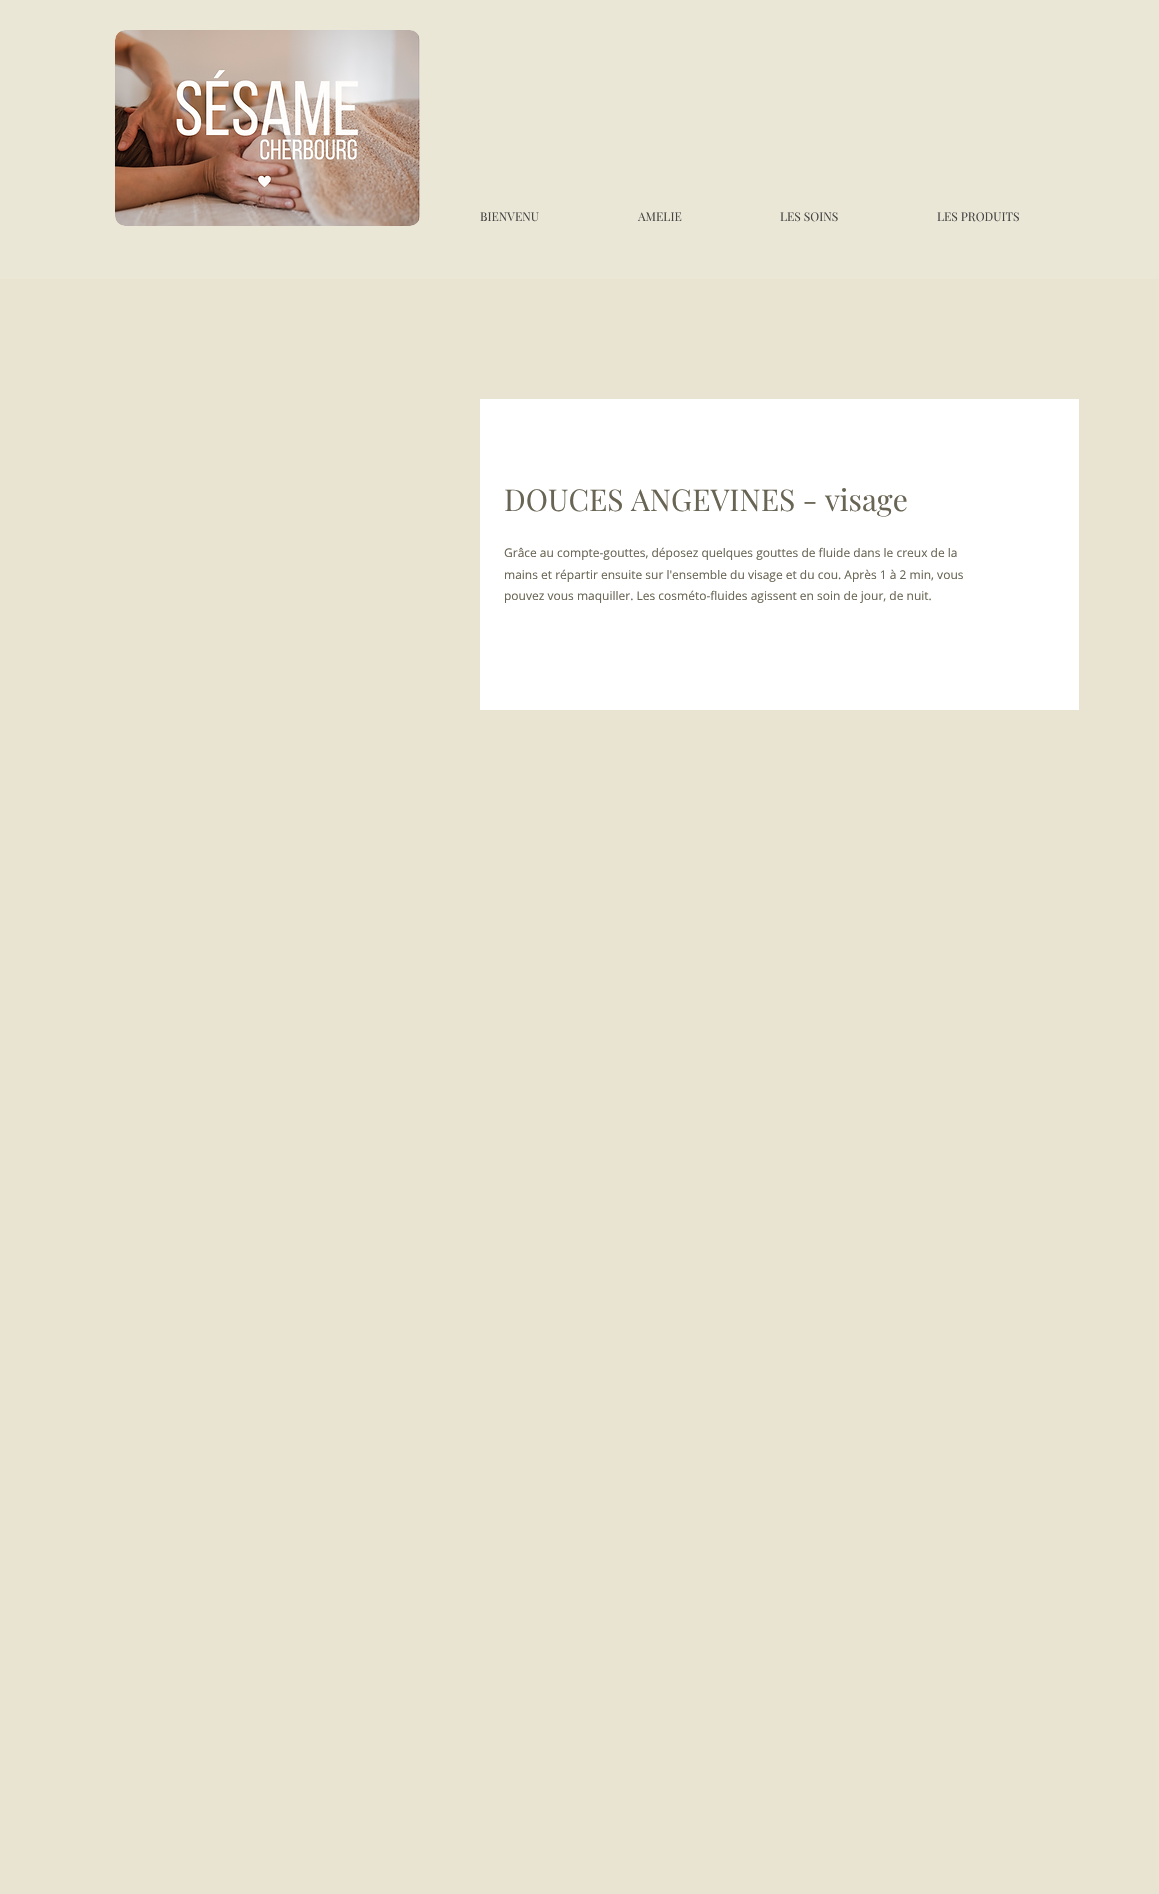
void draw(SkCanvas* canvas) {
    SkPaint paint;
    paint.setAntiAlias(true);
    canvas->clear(0xFFE9E4D1);
    paint.setColor(0xFFEBE7D6);
    canvas->drawRect(SkRect::MakeXYWH(0, 0, 1159, 279), paint);
    canvas->drawImageRect(SkImages::DeferredFromEncodedData(SkData::MakeFromFileName("img1.png")), SkRect::MakeXYWH(115, 30, 305, 196), SkSamplingOptions());
    SkFont font1(fontMgr->matchFamilyStyle("Playfair Display", SkFontStyle::Normal()), 12);
    font1.setSubpixel(true);
    paint.setColor(0xFF444444);
    canvas->drawString("BIENVENU", 480, 221, font1, paint);
    canvas->drawString("AMELIE", 638, 221, font1, paint);
    canvas->drawString("LES SOINS", 780, 221, font1, paint);
    canvas->drawString("LES PRODUITS", 937, 221, font1, paint);
    paint.setColor(0xFFFFFFFF);
    canvas->drawRect(SkRect::MakeXYWH(480, 399, 599, 311), paint);
    SkFont font2(fontMgr->matchFamilyStyle("Playfair Display", SkFontStyle::Normal()), 30);
    font2.setSubpixel(true);
    paint.setColor(0xFF696554);
    canvas->drawString("DOUCES ANGEVINES - visage", 504, 511, font2, paint);
    SkFont font3(fontMgr->matchFamilyStyle("Open Sans", SkFontStyle::Normal()), 12);
    font3.setSubpixel(true);
    canvas->drawString("Grâce au compte-gouttes, déposez quelques gouttes de fluide dans le creux de la", 504, 557, font3, paint);
    canvas->drawString("mains et répartir ensuite sur l'ensemble du visage et du cou. Après 1 à 2 min, vous", 504, 579, font3, paint);
    canvas->drawString("pouvez vous maquiller. Les cosméto-fluides agissent en soin de jour, de nuit.", 504, 600, font3, paint);
}
